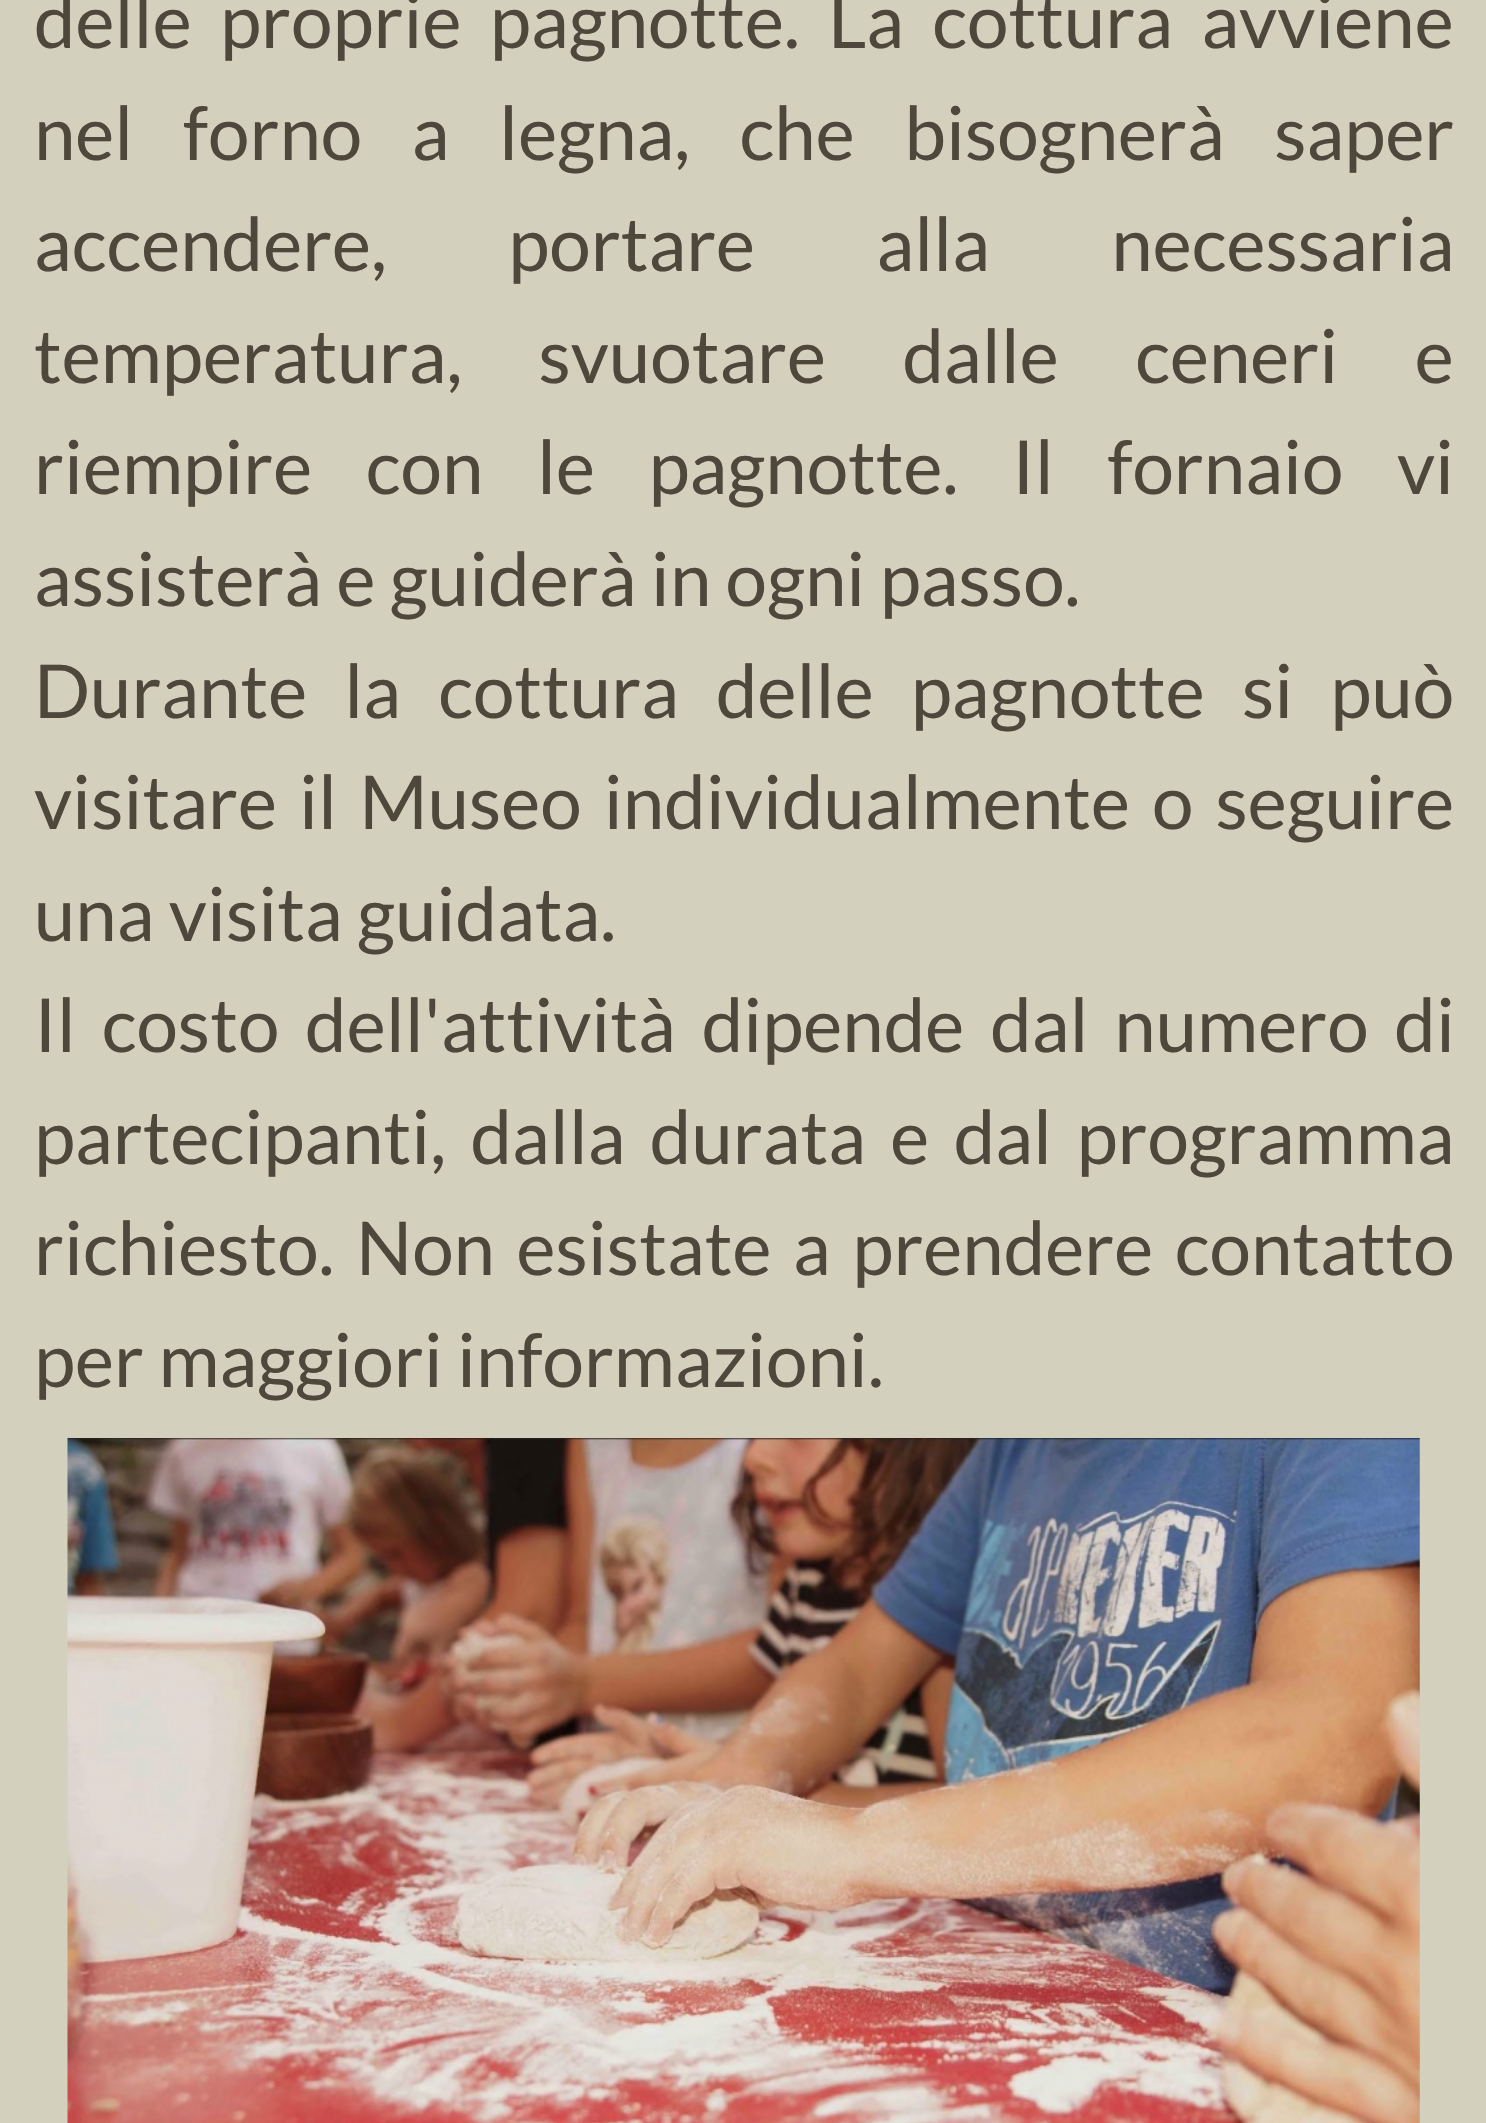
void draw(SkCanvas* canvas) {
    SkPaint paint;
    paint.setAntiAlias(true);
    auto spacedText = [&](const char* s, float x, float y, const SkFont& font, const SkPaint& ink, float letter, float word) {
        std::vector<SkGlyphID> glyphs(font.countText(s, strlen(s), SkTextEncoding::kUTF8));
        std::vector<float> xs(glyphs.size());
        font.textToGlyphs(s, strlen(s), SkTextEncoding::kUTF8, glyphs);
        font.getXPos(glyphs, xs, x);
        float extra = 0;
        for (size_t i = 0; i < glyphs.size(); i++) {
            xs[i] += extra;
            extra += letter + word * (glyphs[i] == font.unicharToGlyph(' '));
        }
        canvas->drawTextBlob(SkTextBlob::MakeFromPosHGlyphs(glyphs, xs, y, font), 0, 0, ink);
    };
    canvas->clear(0xFFD3D1BE);
    SkFont font1(fontMgr->matchFamilyStyle("Lato", SkFontStyle::Normal()), 74.4f);
    font1.setSubpixel(true);
    paint.setColor(0xFF4E473B);
    spacedText("delle proprie pagnotte. La cottura avviene", 34, 48, font1, paint, 0, 14);
    spacedText("nel forno a legna, che bisognerà saper", 34, 160, font1, paint, 0, 35.25f);
    spacedText("accendere, portare alla necessaria", 34, 271, font1, paint, 0, 107);
    spacedText("temperatura, svuotare dalle ceneri e", 34, 383, font1, paint, 0, 62);
    spacedText("riempire con le pagnotte. Il fornaio vi", 34, 494, font1, paint, 0, 39.25f);
    canvas->drawString("assisterà e guiderà in ogni passo.", 34, 606, font1, paint);
    spacedText("Durante la cottura delle pagnotte si può", 34, 718, font1, paint, 0, 22.75f);
    spacedText("visitare il Museo individualmente o seguire", 34, 829, font1, paint, 0, 7.75f);
    canvas->drawString("una visita guidata.", 34, 941, font1, paint);
    spacedText("Il costo dell'attività dipende dal numero di", 34, 1052, font1, paint, 0, 11.5f);
    spacedText("partecipanti, dalla durata e dal programma", 34, 1164, font1, paint, 0, 10);
    spacedText("richiesto. Non esistate a prendere contatto", 34, 1275, font1, paint, 0, 7.25f);
    canvas->drawString("per maggiori informazioni.", 34, 1387, font1, paint);
    canvas->drawImageRect(SkImages::DeferredFromEncodedData(SkData::MakeFromFileName("img1.png")), SkRect::MakeXYWH(67, 1438, 1353, 685), SkSamplingOptions());
}
